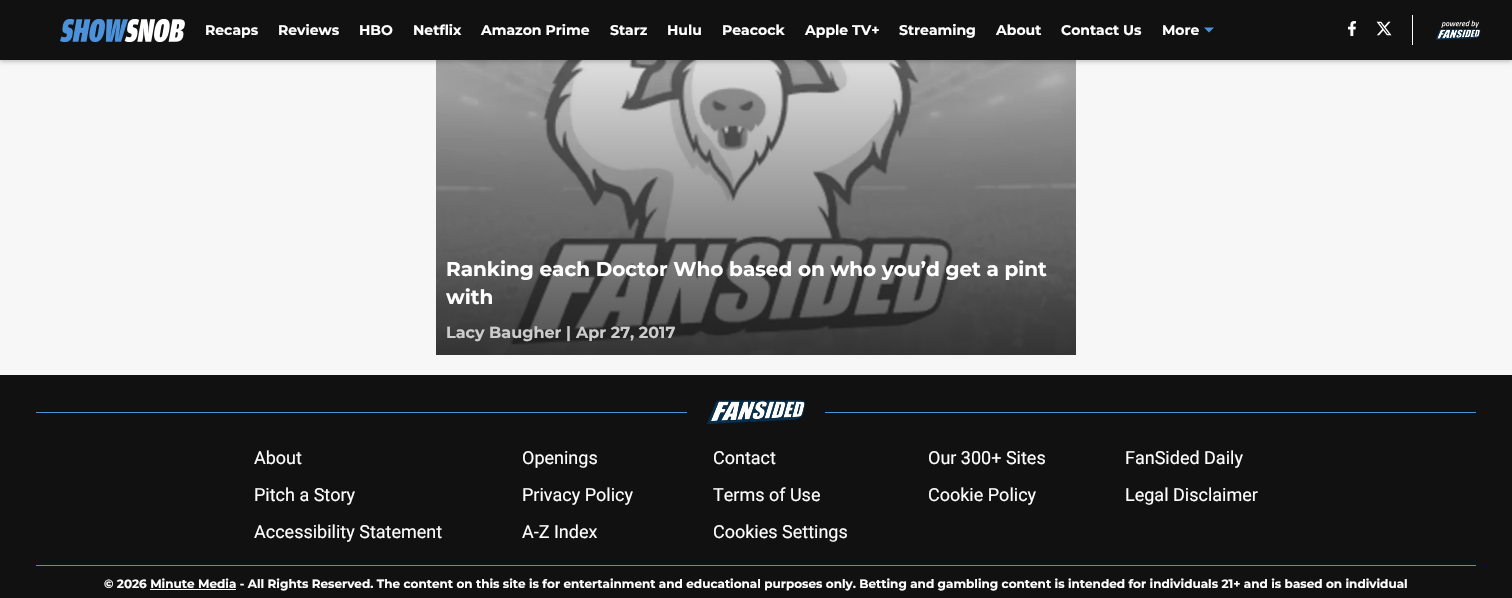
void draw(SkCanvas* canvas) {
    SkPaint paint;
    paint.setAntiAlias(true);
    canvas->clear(0xFFF7F7F7);
    canvas->drawImageRect(SkImages::DeferredFromEncodedData(SkData::MakeFromFileName("img5.png")), SkRect::MakeXYWH(436, 60, 640, 295), SkSamplingOptions());
    paint.setColor(0x33000000);
    paint.setMaskFilter(SkMaskFilter::MakeBlur(kNormal_SkBlurStyle, 2));
    canvas->drawRect(SkRect::MakeXYWH(0, 2, 1512, 60), paint);
    paint.setMaskFilter(nullptr);
    paint.setColor(0xFF111111);
    canvas->drawRect(SkRect::MakeXYWH(0, 0, 1512, 60), paint);
    canvas->drawImageRect(SkImages::DeferredFromEncodedData(SkData::MakeFromFileName("img1.png")), SkRect::MakeXYWH(60, 19, 125, 23), SkSamplingOptions());
    SkFont font1(fontMgr->matchFamilyStyle("Montserrat", SkFontStyle::Bold()), 14);
    font1.setSubpixel(true);
    paint.setColor(0xFFFFFFFF);
    canvas->drawString("Recaps", 205, 35, font1, paint);
    canvas->drawString("Reviews", 278, 35, font1, paint);
    canvas->drawString("HBO", 359, 35, font1, paint);
    canvas->drawString("Netflix", 413, 35, font1, paint);
    canvas->drawString("Amazon Prime", 481, 35, font1, paint);
    canvas->drawString("Starz", 610, 35, font1, paint);
    canvas->drawString("Hulu", 667, 35, font1, paint);
    canvas->drawString("Peacock", 722, 35, font1, paint);
    canvas->drawString("Apple TV+", 805, 35, font1, paint);
    canvas->drawString("Streaming", 899, 35, font1, paint);
    canvas->drawString("About", 996, 35, font1, paint);
    canvas->drawString("Contact Us", 1061, 35, font1, paint);
    canvas->drawString("More", 1162, 35, font1, paint);
    paint.setColor(0xFF4B92DB);
    canvas->drawPath(SkPathBuilder(SkPathFillType::kEvenOdd).moveTo(1204, 27.5f).lineTo(1209, 32.5f).lineTo(1214, 27.5f).close().detach(), paint);
    canvas->drawImageRect(SkImages::DeferredFromEncodedData(SkData::MakeFromFileName("img2.png")), SkRect::MakeXYWH(1348, 21, 8, 15), SkSamplingOptions());
    canvas->drawImageRect(SkImages::DeferredFromEncodedData(SkData::MakeFromFileName("img3.png")), SkRect::MakeXYWH(1376, 21, 16, 15), SkSamplingOptions());
    paint.setColor(0xFFFFFFFF);
    canvas->drawRect(SkRect::MakeXYWH(1412, 15, 1, 30), paint);
    canvas->drawImageRect(SkImages::DeferredFromEncodedData(SkData::MakeFromFileName("img4.png")), SkRect::MakeXYWH(1435, 20, 46, 20), SkSamplingOptions());
    SkFont font2(fontMgr->matchFamilyStyle("Montserrat", SkFontStyle::Bold()), 20);
    font2.setSubpixel(true);
    canvas->drawString("Ranking each Doctor Who based on who you’d get a pint", 446, 276, font2, paint);
    canvas->drawString("with", 446, 304, font2, paint);
    SkFont font3(fontMgr->matchFamilyStyle("Montserrat", SkFontStyle::Bold()), 16);
    font3.setSubpixel(true);
    paint.setColor(0xFFCCCCCC);
    canvas->drawString("Lacy Baugher", 446, 338, font3, paint);
    canvas->drawString("|", 566, 338, font3, paint);
    canvas->drawString("Apr 27, 2017", 576, 338, font3, paint);
    paint.setColor(0xFF111111);
    canvas->drawRect(SkRect::MakeXYWH(0, 375, 1512, 223), paint);
    paint.setColor(0xFF4B92DB);
    canvas->drawRect(SkRect::MakeXYWH(36, 412, 651, 1), paint);
    canvas->drawImageRect(SkImages::DeferredFromEncodedData(SkData::MakeFromFileName("img6.png")), SkRect::MakeXYWH(707, 400, 98, 24), SkSamplingOptions());
    canvas->drawRect(SkRect::MakeXYWH(825, 412, 651, 1), paint);
    SkFont font4(fontMgr->matchFamilyStyle("Roboto", SkFontStyle::Normal()), 18);
    font4.setSubpixel(true);
    paint.setColor(0xFFFFFFFF);
    canvas->drawString("About", 254, 464, font4, paint);
    canvas->drawString("Openings", 522, 464, font4, paint);
    canvas->drawString("Contact", 713, 464, font4, paint);
    canvas->drawString("Our 300+ Sites", 928, 464, font4, paint);
    canvas->drawString("FanSided Daily", 1125, 464, font4, paint);
    canvas->drawString("Pitch a Story", 254, 501, font4, paint);
    canvas->drawString("Privacy Policy", 522, 501, font4, paint);
    canvas->drawString("Terms of Use", 713, 501, font4, paint);
    canvas->drawString("Cookie Policy", 928, 501, font4, paint);
    canvas->drawString("Legal Disclaimer", 1125, 501, font4, paint);
    canvas->drawString("Accessibility Statement", 254, 538, font4, paint);
    canvas->drawString("A-Z Index", 522, 538, font4, paint);
    canvas->drawString("Cookies Settings", 713, 538, font4, paint);
    paint.setColor(0xFF4B92DB);
    canvas->drawRect(SkRect::MakeXYWH(36, 565, 1440, 1), paint);
    SkFont font5(fontMgr->matchFamilyStyle("Montserrat", SkFontStyle::Bold()), 12);
    font5.setSubpixel(true);
    paint.setColor(0xFFFFFFFF);
    canvas->drawString("© 2026 Minute Media - All Rights Reserved. The content on this site is for entertainment and educational purposes only. Betting and gambling content is intended for individuals 21+ and is based on individual", 104, 588, font5, paint);
    canvas->drawRect(SkRect::MakeXYWH(150, 589, 86, 1), paint);
}
